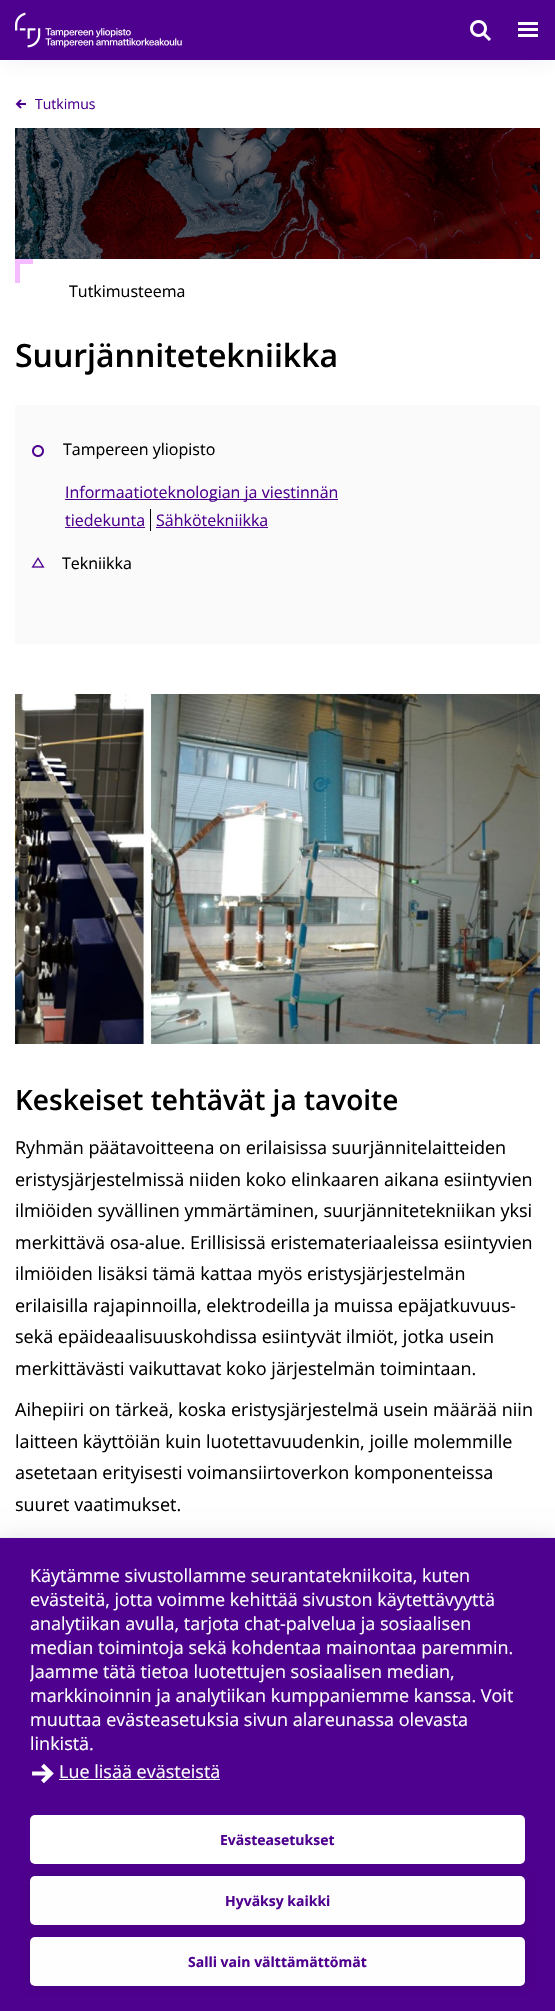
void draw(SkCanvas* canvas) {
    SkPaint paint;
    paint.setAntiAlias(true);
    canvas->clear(0xFFFFFFFF);
    paint.setColor(0x1A6E5D93);
    paint.setMaskFilter(SkMaskFilter::MakeBlur(kNormal_SkBlurStyle, 10));
    canvas->drawRect(SkRect::MakeXYWH(4, 9, 547, 52), paint);
    paint.setMaskFilter(nullptr);
    paint.setColor(0xFF4E008E);
    canvas->drawRect(SkRect::MakeXYWH(0, 0, 555, 60), paint);
    canvas->drawImageRect(SkImages::DeferredFromEncodedData(SkData::MakeFromFileName("img1.png")), SkRect::MakeXYWH(15, 12, 167, 36), SkSamplingOptions());
    canvas->drawImageRect(SkImages::DeferredFromEncodedData(SkData::MakeFromFileName("img2.png")), SkRect::MakeXYWH(470, 20, 21, 21), SkSamplingOptions());
    canvas->drawImageRect(SkImages::DeferredFromEncodedData(SkData::MakeFromFileName("img3.png")), SkRect::MakeXYWH(518, 22, 20, 15), SkSamplingOptions());
    canvas->drawImageRect(SkImages::DeferredFromEncodedData(SkData::MakeFromFileName("img4.png")), SkRect::MakeXYWH(15, 99, 11, 10), SkSamplingOptions());
    SkFont font1(fontMgr->matchFamilyStyle("Open Sans", SkFontStyle::Normal()), 14);
    font1.setSubpixel(true);
    canvas->drawString("Tutkimus", 35, 109, font1, paint);
    canvas->drawImageRect(SkImages::DeferredFromEncodedData(SkData::MakeFromFileName("img5.png")), SkRect::MakeXYWH(15, 128, 525, 131), SkSamplingOptions());
    paint.setColor(0xFFF5BCFF);
    canvas->drawPath(SkPathBuilder().moveTo(20, 283).lineTo(15, 283).lineTo(15, 259).lineTo(33, 259).lineTo(33, 264).lineTo(20, 264).close().detach(), paint);
    SkFont font2(fontMgr->matchFamilyStyle("Open Sans", SkFontStyle::Normal()), 16);
    font2.setSubpixel(true);
    paint.setColor(0xFF000000);
    canvas->drawString("Tutkimusteema", 69, 297, font2, paint);
    SkFont font3(fontMgr->matchFamilyStyle("Open Sans", SkFontStyle(600, SkFontStyle::kNormal_Width, SkFontStyle::kUpright_Slant)), 32);
    font3.setSubpixel(true);
    canvas->drawString("Suurjännitetekniikka", 15, 367, font3, paint);
    paint.setColor(0xFFFAFAFA);
    canvas->drawRect(SkRect::MakeXYWH(15, 405, 525, 239), paint);
    canvas->drawImageRect(SkImages::DeferredFromEncodedData(SkData::MakeFromFileName("img6.png")), SkRect::MakeXYWH(32, 445, 12, 12), SkSamplingOptions());
    paint.setColor(0xFF000000);
    canvas->drawString("Tampereen yliopisto", 63, 455, font2, paint);
    paint.setColor(0xFF4E008E);
    canvas->drawRect(SkRect::MakeXYWH(65, 499, 273, 1), paint);
    canvas->drawString("Informaatioteknologian ja viestinnän", 65, 498, font2, paint);
    canvas->drawString("tiedekunta", 65, 526, font2, paint);
    paint.setColor(0xFF000000);
    canvas->drawRect(SkRect::MakeXYWH(150, 509, 1, 22), paint);
    paint.setColor(0xFF4E008E);
    canvas->drawRect(SkRect::MakeXYWH(65, 527, 80, 1), paint);
    canvas->drawString("Sähkötekniikka", 156, 526, font2, paint);
    canvas->drawRect(SkRect::MakeXYWH(156, 527, 112, 1), paint);
    canvas->drawImageRect(SkImages::DeferredFromEncodedData(SkData::MakeFromFileName("img7.png")), SkRect::MakeXYWH(31, 557, 14, 11), SkSamplingOptions());
    paint.setColor(0xFF000000);
    canvas->drawString("Tekniikka", 62, 569, font2, paint);
    canvas->drawImageRect(SkImages::DeferredFromEncodedData(SkData::MakeFromFileName("img8.png")), SkRect::MakeXYWH(15, 694, 525, 350), SkSamplingOptions());
    SkFont font4(fontMgr->matchFamilyStyle("Open Sans", SkFontStyle(600, SkFontStyle::kNormal_Width, SkFontStyle::kUpright_Slant)), 28);
    font4.setSubpixel(true);
    canvas->drawString("Keskeiset tehtävät ja tavoite", 15, 1110, font4, paint);
    SkFont font5(fontMgr->matchFamilyStyle("Open Sans", SkFontStyle::Normal()), 18);
    font5.setSubpixel(true);
    canvas->drawString("Ryhmän päätavoitteena on erilaisissa suurjännitelaitteiden", 15, 1154, font5, paint);
    canvas->drawString("eristysjärjestelmissä niiden koko elinkaaren aikana esiintyvien", 15, 1186, font5, paint);
    canvas->drawString("ilmiöiden syvällinen ymmärtäminen, suurjännitetekniikan yksi", 15, 1217, font5, paint);
    canvas->drawString("merkittävä osa-alue. Erillisissä eristemateriaaleissa esiintyvien", 15, 1249, font5, paint);
    canvas->drawString("ilmiöiden lisäksi tämä kattaa myös eristysjärjestelmän", 15, 1280, font5, paint);
    canvas->drawString("erilaisilla rajapinnoilla, elektrodeilla ja muissa epäjatkuvuus-", 15, 1312, font5, paint);
    canvas->drawString("sekä epäideaalisuuskohdissa esiintyvät ilmiöt, jotka usein", 15, 1343, font5, paint);
    canvas->drawString("merkittävästi vaikuttavat koko järjestelmän toimintaan.", 15, 1375, font5, paint);
    canvas->drawString("Aihepiiri on tärkeä, koska eristysjärjestelmä usein määrää niin", 15, 1416, font5, paint);
    canvas->drawString("laitteen käyttöiän kuin luotettavuudenkin, joille molemmille", 15, 1448, font5, paint);
    canvas->drawString("asetetaan erityisesti voimansiirtoverkon komponenteissa", 15, 1479, font5, paint);
    canvas->drawString("suuret vaatimukset.", 15, 1511, font5, paint);
    paint.setColor(0x1A000000);
    paint.setMaskFilter(SkMaskFilter::MakeBlur(kNormal_SkBlurStyle, 10));
    canvas->drawRect(SkRect::MakeXYWH(0, 1537, 555, 474), paint);
    paint.setMaskFilter(nullptr);
    paint.setColor(0xFF4E008E);
    canvas->drawRect(SkRect::MakeXYWH(0, 1538, 555, 473), paint);
    paint.setColor(0xFFEEEEEE);
    canvas->drawRect(SkRect::MakeXYWH(0, 1537, 555, 1), paint);
    paint.setColor(0xFFFFFFFF);
    canvas->drawString("Käytämme sivustollamme seurantatekniikoita, kuten", 30, 1582, font5, paint);
    canvas->drawString("evästeitä, jotta voimme kehittää sivuston käytettävyyttä", 30, 1606, font5, paint);
    canvas->drawString("analytiikan avulla, tarjota chat-palvelua ja sosiaalisen", 30, 1630, font5, paint);
    canvas->drawString("median toimintoja sekä kohdentaa mainontaa paremmin.", 30, 1654, font5, paint);
    canvas->save();
    canvas->clipRect(SkRect::MakeXYWH(30, 1563, 495, 252));
    canvas->drawString("Jaamme tätä tietoa luotettujen sosiaalisen median,", 30, 1678, font5, paint);
    canvas->restore();
    canvas->drawString("markkinoinnin ja analytiikan kumppaniemme kanssa. Voit", 30, 1702, font5, paint);
    canvas->drawString("muuttaa evästeasetuksia sivun alareunassa olevasta", 30, 1726, font5, paint);
    canvas->drawString("linkistä.", 30, 1750, font5, paint);
    canvas->drawImageRect(SkImages::DeferredFromEncodedData(SkData::MakeFromFileName("img9.png")), SkRect::MakeXYWH(32, 1763, 22, 21), SkSamplingOptions());
    canvas->drawString("Lue lisää evästeistä", 59, 1778, font5, paint);
    canvas->drawRect(SkRect::MakeXYWH(59, 1779, 161, 1), paint);
    canvas->drawRoundRect(SkRect::MakeXYWH(30, 1815, 495, 49), 5, 5, paint);
    SkFont font6(fontMgr->matchFamilyStyle("Open Sans", SkFontStyle::Bold()), 14);
    font6.setSubpixel(true);
    paint.setColor(0xFF4E008E);
    canvas->drawString("Evästeasetukset", 220, 1845, font6, paint);
    paint.setColor(0x1F000000);
    paint.setMaskFilter(SkMaskFilter::MakeBlur(kNormal_SkBlurStyle, 5));
    canvas->drawRoundRect(SkRect::MakeXYWH(30, 1876, 495, 49), 5, 5, paint);
    paint.setMaskFilter(nullptr);
    paint.setColor(0xFFFFFEFE);
    canvas->drawRoundRect(SkRect::MakeXYWH(30, 1876, 495, 49), 5, 5, paint);
    paint.setColor(0xFF4E008E);
    canvas->drawString("Hyväksy kaikki", 225, 1906, font6, paint);
    paint.setColor(0x1F000000);
    paint.setMaskFilter(SkMaskFilter::MakeBlur(kNormal_SkBlurStyle, 5));
    canvas->drawRoundRect(SkRect::MakeXYWH(30, 1937, 495, 49), 5, 5, paint);
    paint.setMaskFilter(nullptr);
    paint.setColor(0xFFFFFEFE);
    canvas->drawRoundRect(SkRect::MakeXYWH(30, 1937, 495, 49), 5, 5, paint);
    paint.setColor(0xFF4E008E);
    canvas->drawString("Salli vain välttämättömät", 188, 1967, font6, paint);
}
